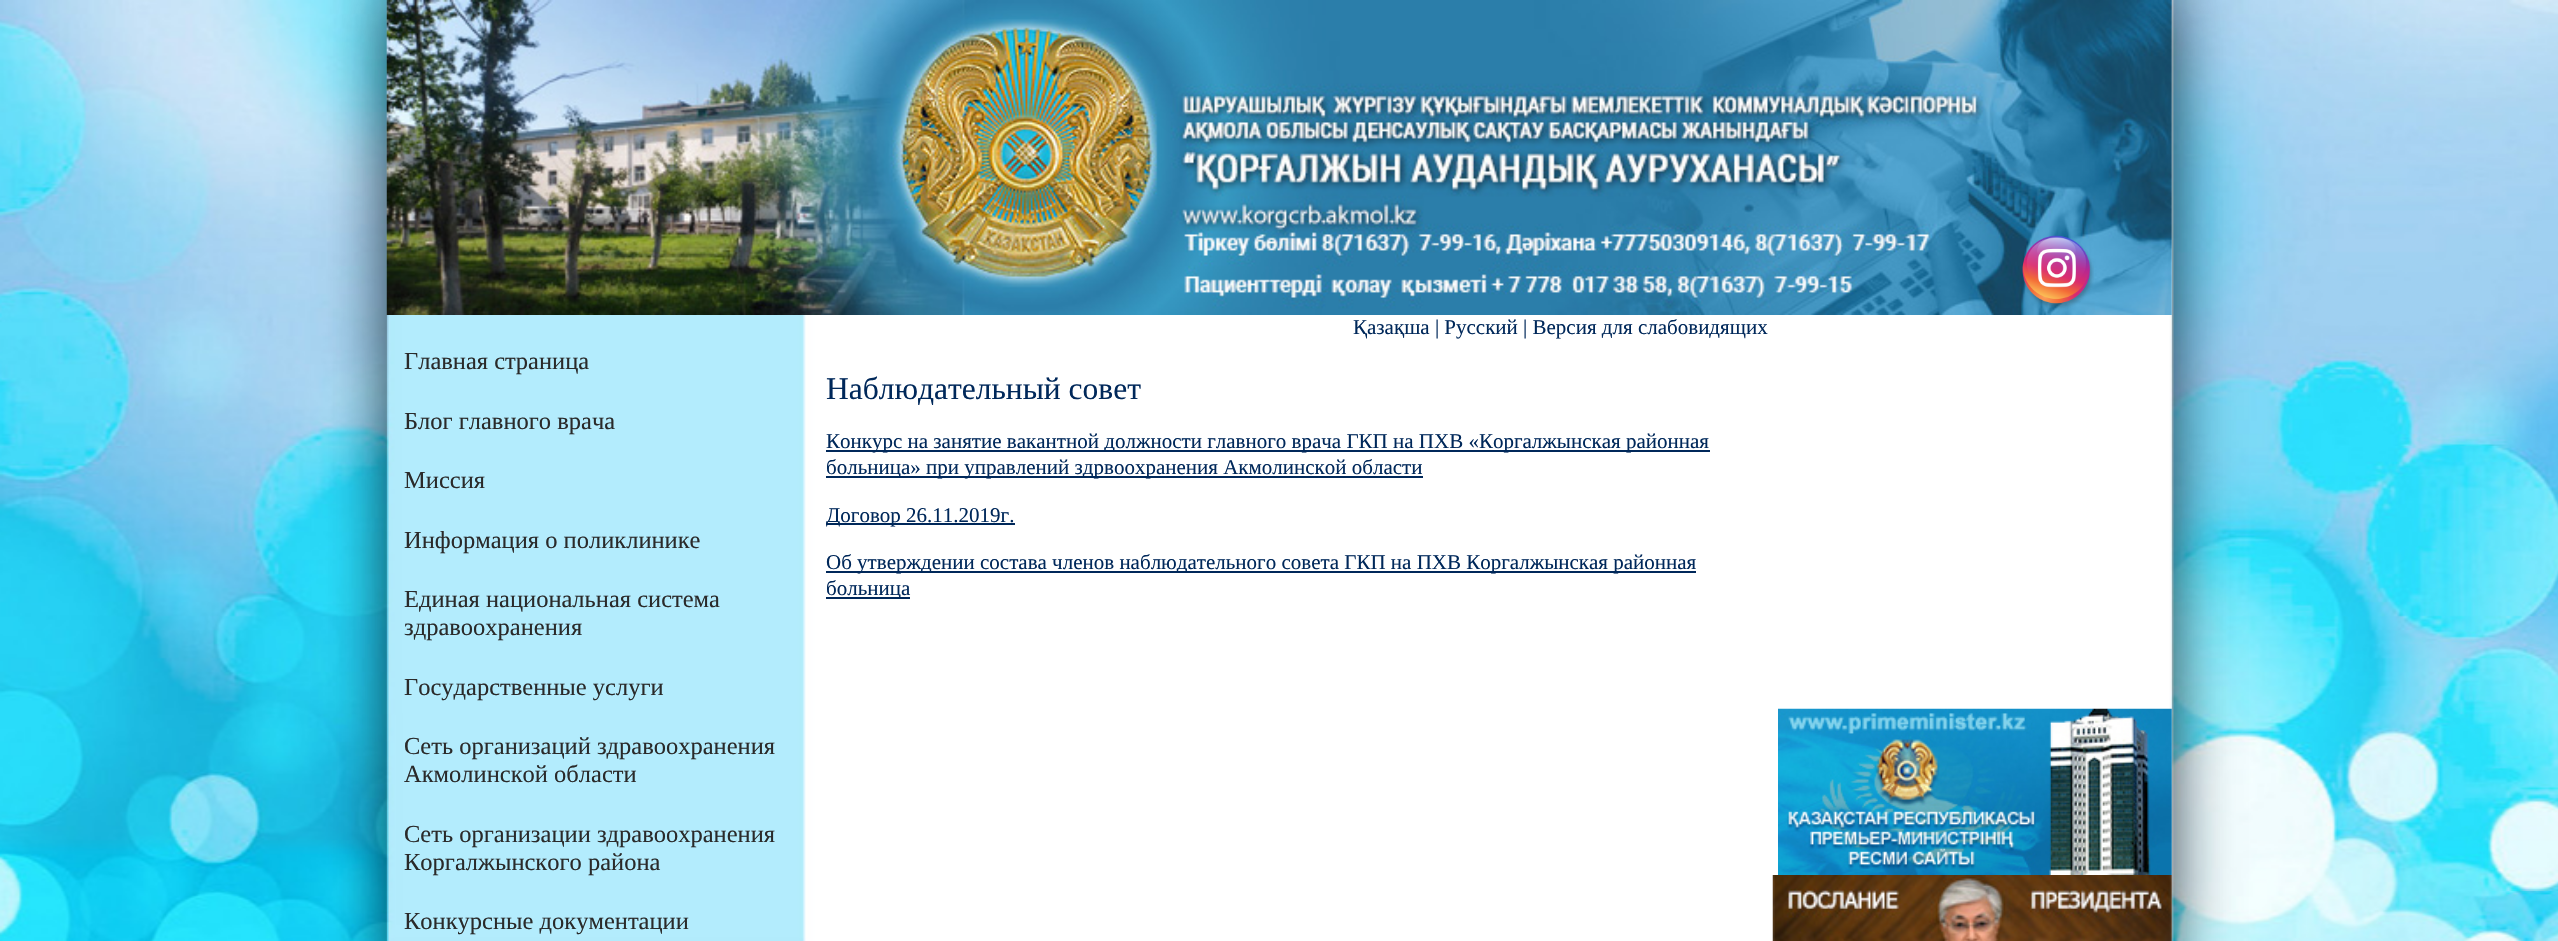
void draw(SkCanvas* canvas) {
    SkPaint paint;
    paint.setAntiAlias(true);
    canvas->clear(0xFFFFFFFF);
    canvas->drawImageRect(SkImages::DeferredFromEncodedData(SkData::MakeFromFileName("img1.png")), SkRect::MakeXYWH(0, 0, 2558, 941), SkSamplingOptions());
    canvas->save();
    canvas->clipPath(SkPathBuilder(SkPathFillType::kEvenOdd).moveTo(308, 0).lineTo(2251, 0).lineTo(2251, 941).lineTo(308, 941).close().moveTo(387, 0).lineTo(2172, 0).lineTo(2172, 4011).lineTo(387, 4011).close().detach(), true);
    paint.setColor(0x80000000);
    paint.setMaskFilter(SkMaskFilter::MakeBlur(kNormal_SkBlurStyle, 26));
    canvas->drawRect(SkRect::MakeXYWH(387, 0, 1785, 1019), paint);
    paint.setMaskFilter(nullptr);
    canvas->restore();
    canvas->drawImageRect(SkImages::DeferredFromEncodedData(SkData::MakeFromFileName("img2.png")), SkRect::MakeXYWH(386, 0, 1786, 315), SkSamplingOptions());
    canvas->drawImageRect(SkImages::DeferredFromEncodedData(SkData::MakeFromFileName("img3.png")), SkRect::MakeXYWH(2022, 235, 72, 75), SkSamplingOptions());
    SkFont font1(fontMgr->matchFamilyStyle("Liberation Serif", SkFontStyle::Normal()), 24.5f);
    font1.setSubpixel(true);
    paint.setColor(0xFF2A2A2A);
    canvas->drawString("Главная страница", 404, 369, font1, paint);
    canvas->drawString("Блог главного врача", 404, 429, font1, paint);
    canvas->drawString("Миссия", 404, 488, font1, paint);
    canvas->drawString("Информация о поликлинике", 404, 548, font1, paint);
    canvas->drawString("Единая национальная система", 404, 607, font1, paint);
    canvas->drawString("здравоохранения", 404, 635, font1, paint);
    canvas->drawString("Государственные услуги", 404, 695, font1, paint);
    canvas->drawString("Сеть организаций здравоохранения", 404, 754, font1, paint);
    canvas->drawString("Акмолинской области", 404, 782, font1, paint);
    canvas->drawString("Сеть организации здравоохранения", 404, 842, font1, paint);
    canvas->drawString("Коргалжынского района", 404, 870, font1, paint);
    canvas->drawString("Конкурсные документации", 404, 929, font1, paint);
    SkFont font2(fontMgr->matchFamilyStyle("Liberation Serif", SkFontStyle::Normal()), 21);
    font2.setSubpixel(true);
    paint.setColor(0xFF00285A);
    canvas->drawString("Қазақша | Русский | Версия для слабовидящих", 1353, 334, font2, paint);
    SkFont font3(fontMgr->matchFamilyStyle("Liberation Serif", SkFontStyle::Normal()), 31.5f);
    font3.setSubpixel(true);
    canvas->drawString("Наблюдательный совет", 826, 399, font3, paint);
    canvas->drawRect(SkRect::MakeXYWH(826, 450, 884, 2), paint);
    canvas->drawString("Конкурс на занятие вакантной должности главного врача ГКП на ПХВ «Коргалжынская районная", 826, 448, font2, paint);
    canvas->drawRect(SkRect::MakeXYWH(826, 476, 597, 2), paint);
    canvas->drawString("больница» при управлений здрвоохранения Акмолинской области", 826, 474, font2, paint);
    canvas->drawRect(SkRect::MakeXYWH(826, 523, 189, 2), paint);
    canvas->drawString("Договор 26.11.2019г.", 826, 522, font2, paint);
    canvas->drawRect(SkRect::MakeXYWH(826, 571, 870, 2), paint);
    canvas->drawString("Об утверждении состава членов наблюдательного совета ГКП на ПХВ Коргалжынская районная", 826, 569, font2, paint);
    canvas->drawRect(SkRect::MakeXYWH(826, 597, 84, 2), paint);
    canvas->drawString("больница", 826, 595, font2, paint);
    canvas->drawImageRect(SkImages::DeferredFromEncodedData(SkData::MakeFromFileName("img4.png")), SkRect::MakeXYWH(1778, 708, 394, 167), SkSamplingOptions());
    canvas->drawImageRect(SkImages::DeferredFromEncodedData(SkData::MakeFromFileName("img5.png")), SkRect::MakeXYWH(1772, 875, 400, 66), SkSamplingOptions());
}
